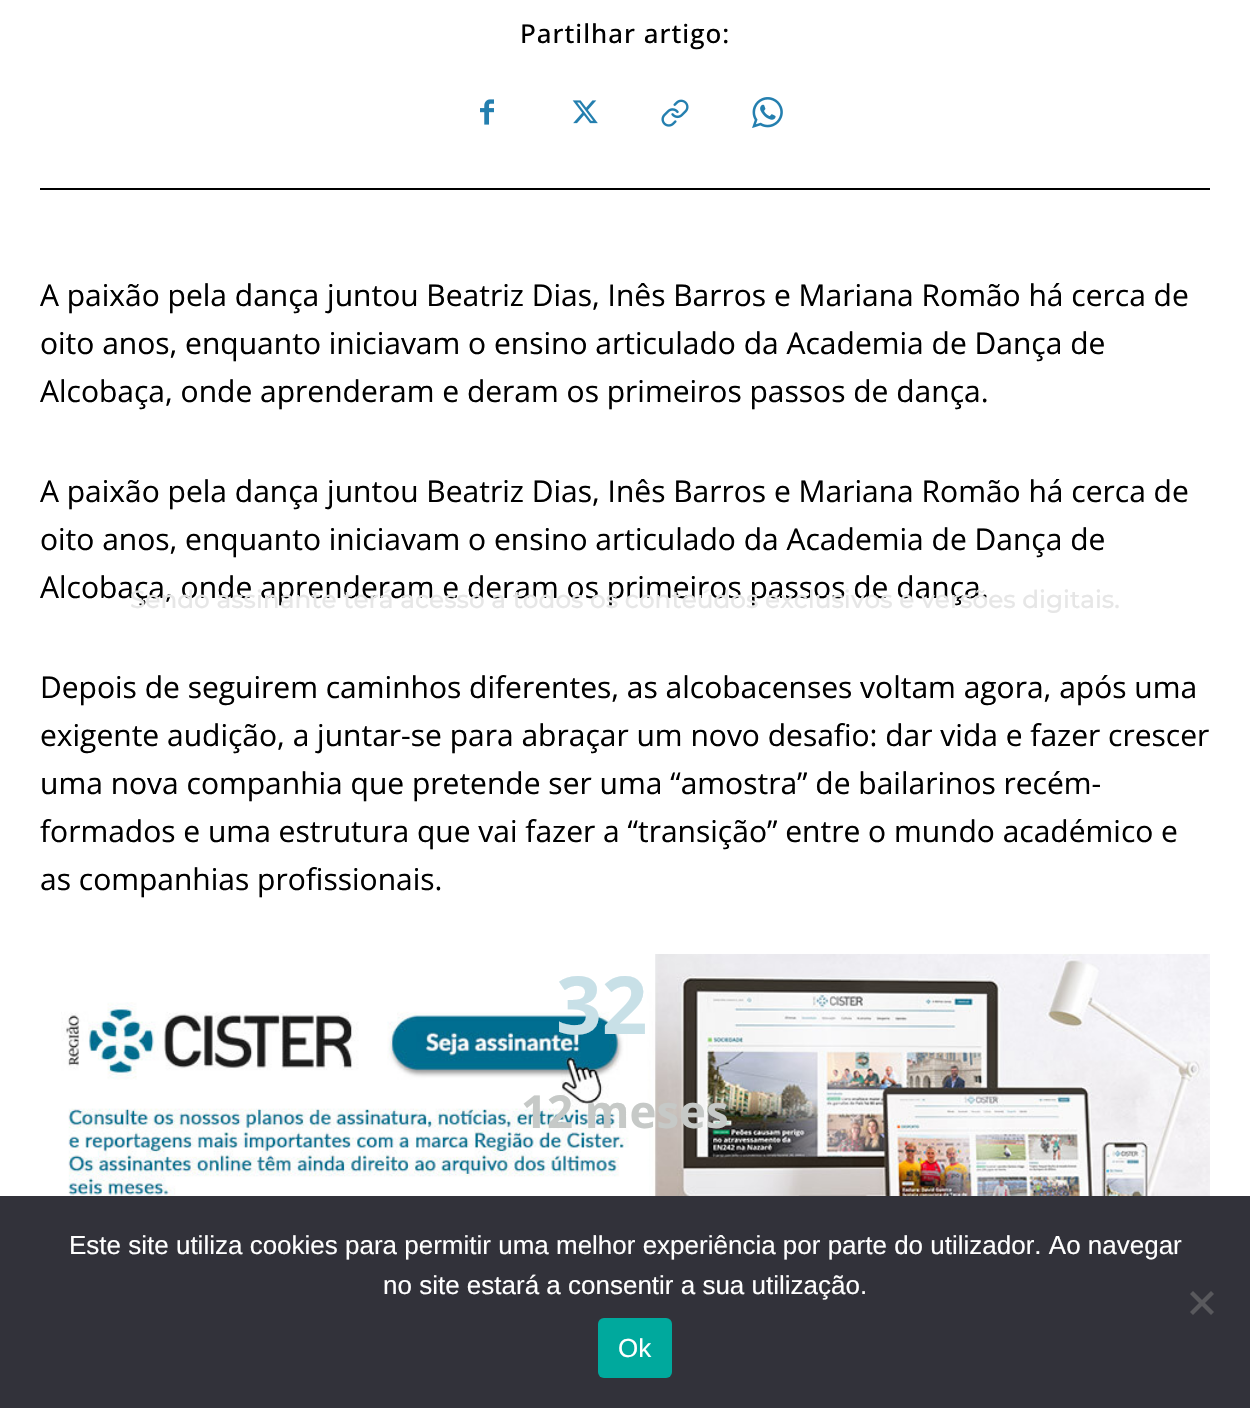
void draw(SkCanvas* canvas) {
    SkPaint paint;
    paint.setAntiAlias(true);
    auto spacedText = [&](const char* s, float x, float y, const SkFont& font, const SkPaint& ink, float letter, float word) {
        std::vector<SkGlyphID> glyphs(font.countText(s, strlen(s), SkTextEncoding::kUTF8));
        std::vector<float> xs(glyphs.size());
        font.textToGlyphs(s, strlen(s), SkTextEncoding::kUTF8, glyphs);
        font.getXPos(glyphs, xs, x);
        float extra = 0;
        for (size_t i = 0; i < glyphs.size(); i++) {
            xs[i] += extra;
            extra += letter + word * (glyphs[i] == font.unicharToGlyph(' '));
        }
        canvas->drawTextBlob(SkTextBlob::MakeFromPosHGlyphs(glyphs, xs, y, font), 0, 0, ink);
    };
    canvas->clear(0xFFFFFFFF);
    paint.setColor(0xFF000000);
    canvas->drawRect(SkRect::MakeXYWH(40, 188, 1170, 2), paint);
    SkFont font1(fontMgr->matchFamilyStyle("Open Sans", SkFontStyle(500, SkFontStyle::kNormal_Width, SkFontStyle::kUpright_Slant)), 26);
    font1.setSubpixel(true);
    spacedText("Partilhar artigo:", 520, 43, font1, paint, 1, 0);
    canvas->drawImageRect(SkImages::DeferredFromEncodedData(SkData::MakeFromFileName("img1.png")), SkRect::MakeXYWH(480, 99, 14, 26), SkSamplingOptions());
    canvas->drawImageRect(SkImages::DeferredFromEncodedData(SkData::MakeFromFileName("img2.png")), SkRect::MakeXYWH(572, 100, 26, 24), SkSamplingOptions());
    canvas->drawImageRect(SkImages::DeferredFromEncodedData(SkData::MakeFromFileName("img3.png")), SkRect::MakeXYWH(661, 99, 28, 28), SkSamplingOptions());
    canvas->drawImageRect(SkImages::DeferredFromEncodedData(SkData::MakeFromFileName("img4.png")), SkRect::MakeXYWH(752, 97, 31, 31), SkSamplingOptions());
    SkFont font2(fontMgr->matchFamilyStyle("Open Sans", SkFontStyle::Normal()), 30);
    font2.setSubpixel(true);
    canvas->drawString("A paixão pela dança juntou Beatriz Dias, Inês Barros e Mariana Romão há cerca de", 40, 306, font2, paint);
    canvas->drawString("oito anos, enquanto iniciavam o ensino articulado da Academia de Dança de", 40, 354, font2, paint);
    canvas->drawString("Alcobaça, onde aprenderam e deram os primeiros passos de dança.", 40, 402, font2, paint);
    canvas->drawString("A paixão pela dança juntou Beatriz Dias, Inês Barros e Mariana Romão há cerca de", 40, 502, font2, paint);
    canvas->drawString("oito anos, enquanto iniciavam o ensino articulado da Academia de Dança de", 40, 550, font2, paint);
    canvas->drawString("Alcobaça, onde aprenderam e deram os primeiros passos de dança.", 40, 598, font2, paint);
    canvas->drawString("Depois de seguirem caminhos diferentes, as alcobacenses voltam agora, após uma", 40, 698, font2, paint);
    canvas->drawString("exigente audição, a juntar-se para abraçar um novo desafio: dar vida e fazer crescer", 40, 746, font2, paint);
    canvas->drawString("uma nova companhia que pretende ser uma “amostra” de bailarinos recém-", 40, 794, font2, paint);
    canvas->drawString("formados e uma estrutura que vai fazer a “transição” entre o mundo académico e", 40, 842, font2, paint);
    canvas->drawString("as companhias profissionais.", 40, 890, font2, paint);
    canvas->drawImageRect(SkImages::DeferredFromEncodedData(SkData::MakeFromFileName("img5.png")), SkRect::MakeXYWH(61, 954, 1149, 242), SkSamplingOptions());
    SkFont font3(fontMgr->matchFamilyStyle("Montserrat", SkFontStyle(500, SkFontStyle::kNormal_Width, SkFontStyle::kUpright_Slant)), 24.7f);
    font3.setSubpixel(true);
    paint.setColor(0xFFE6E6E6);
    canvas->drawString("Sendo assinante terá acesso a todos os conteúdos exclusivos e versões digitais.", 130, 608, font3, paint);
    SkFont font4(fontMgr->matchFamilyStyle("Open Sans", SkFontStyle::Bold()), 80);
    font4.setSubpixel(true);
    paint.setColor(0xFFC8E0E7);
    canvas->drawString("32", 556, 1034, font4, paint);
    SkFont font5(fontMgr->matchFamilyStyle("Open Sans", SkFontStyle::Bold()), 45.5f);
    font5.setSubpixel(true);
    paint.setColor(0xFFC6C9C7);
    canvas->drawString("12 meses", 521, 1128, font5, paint);
    paint.setColor(0xFF32323A);
    canvas->drawRect(SkRect::MakeXYWH(0, 1196, 1250, 212), paint);
    SkFont font6(fontMgr->matchFamilyStyle("Liberation Sans", SkFontStyle::Normal()), 26);
    font6.setSubpixel(true);
    paint.setColor(0xFFFFFFFF);
    canvas->drawString("Este site utiliza cookies para permitir uma melhor experiência por parte do utilizador. Ao navegar", 69, 1254, font6, paint);
    canvas->drawString("no site estará a consentir a sua utilização.", 383, 1294, font6, paint);
    paint.setColor(0xFF59595D);
    canvas->drawPath(SkPathBuilder().moveTo(1211, 1291).lineTo(1214, 1294).lineTo(1193, 1315).lineTo(1190, 1312).close().detach(), paint);
    canvas->drawPath(SkPathBuilder().moveTo(1190, 1294).lineTo(1193, 1291).lineTo(1214, 1312).lineTo(1211, 1315).close().detach(), paint);
    paint.setColor(0xFF00A99D);
    canvas->drawRoundRect(SkRect::MakeXYWH(598, 1318, 74, 60), 6, 6, paint);
    paint.setColor(0xFFFFFFFF);
    canvas->drawString("Ok", 618, 1357, font6, paint);
}
